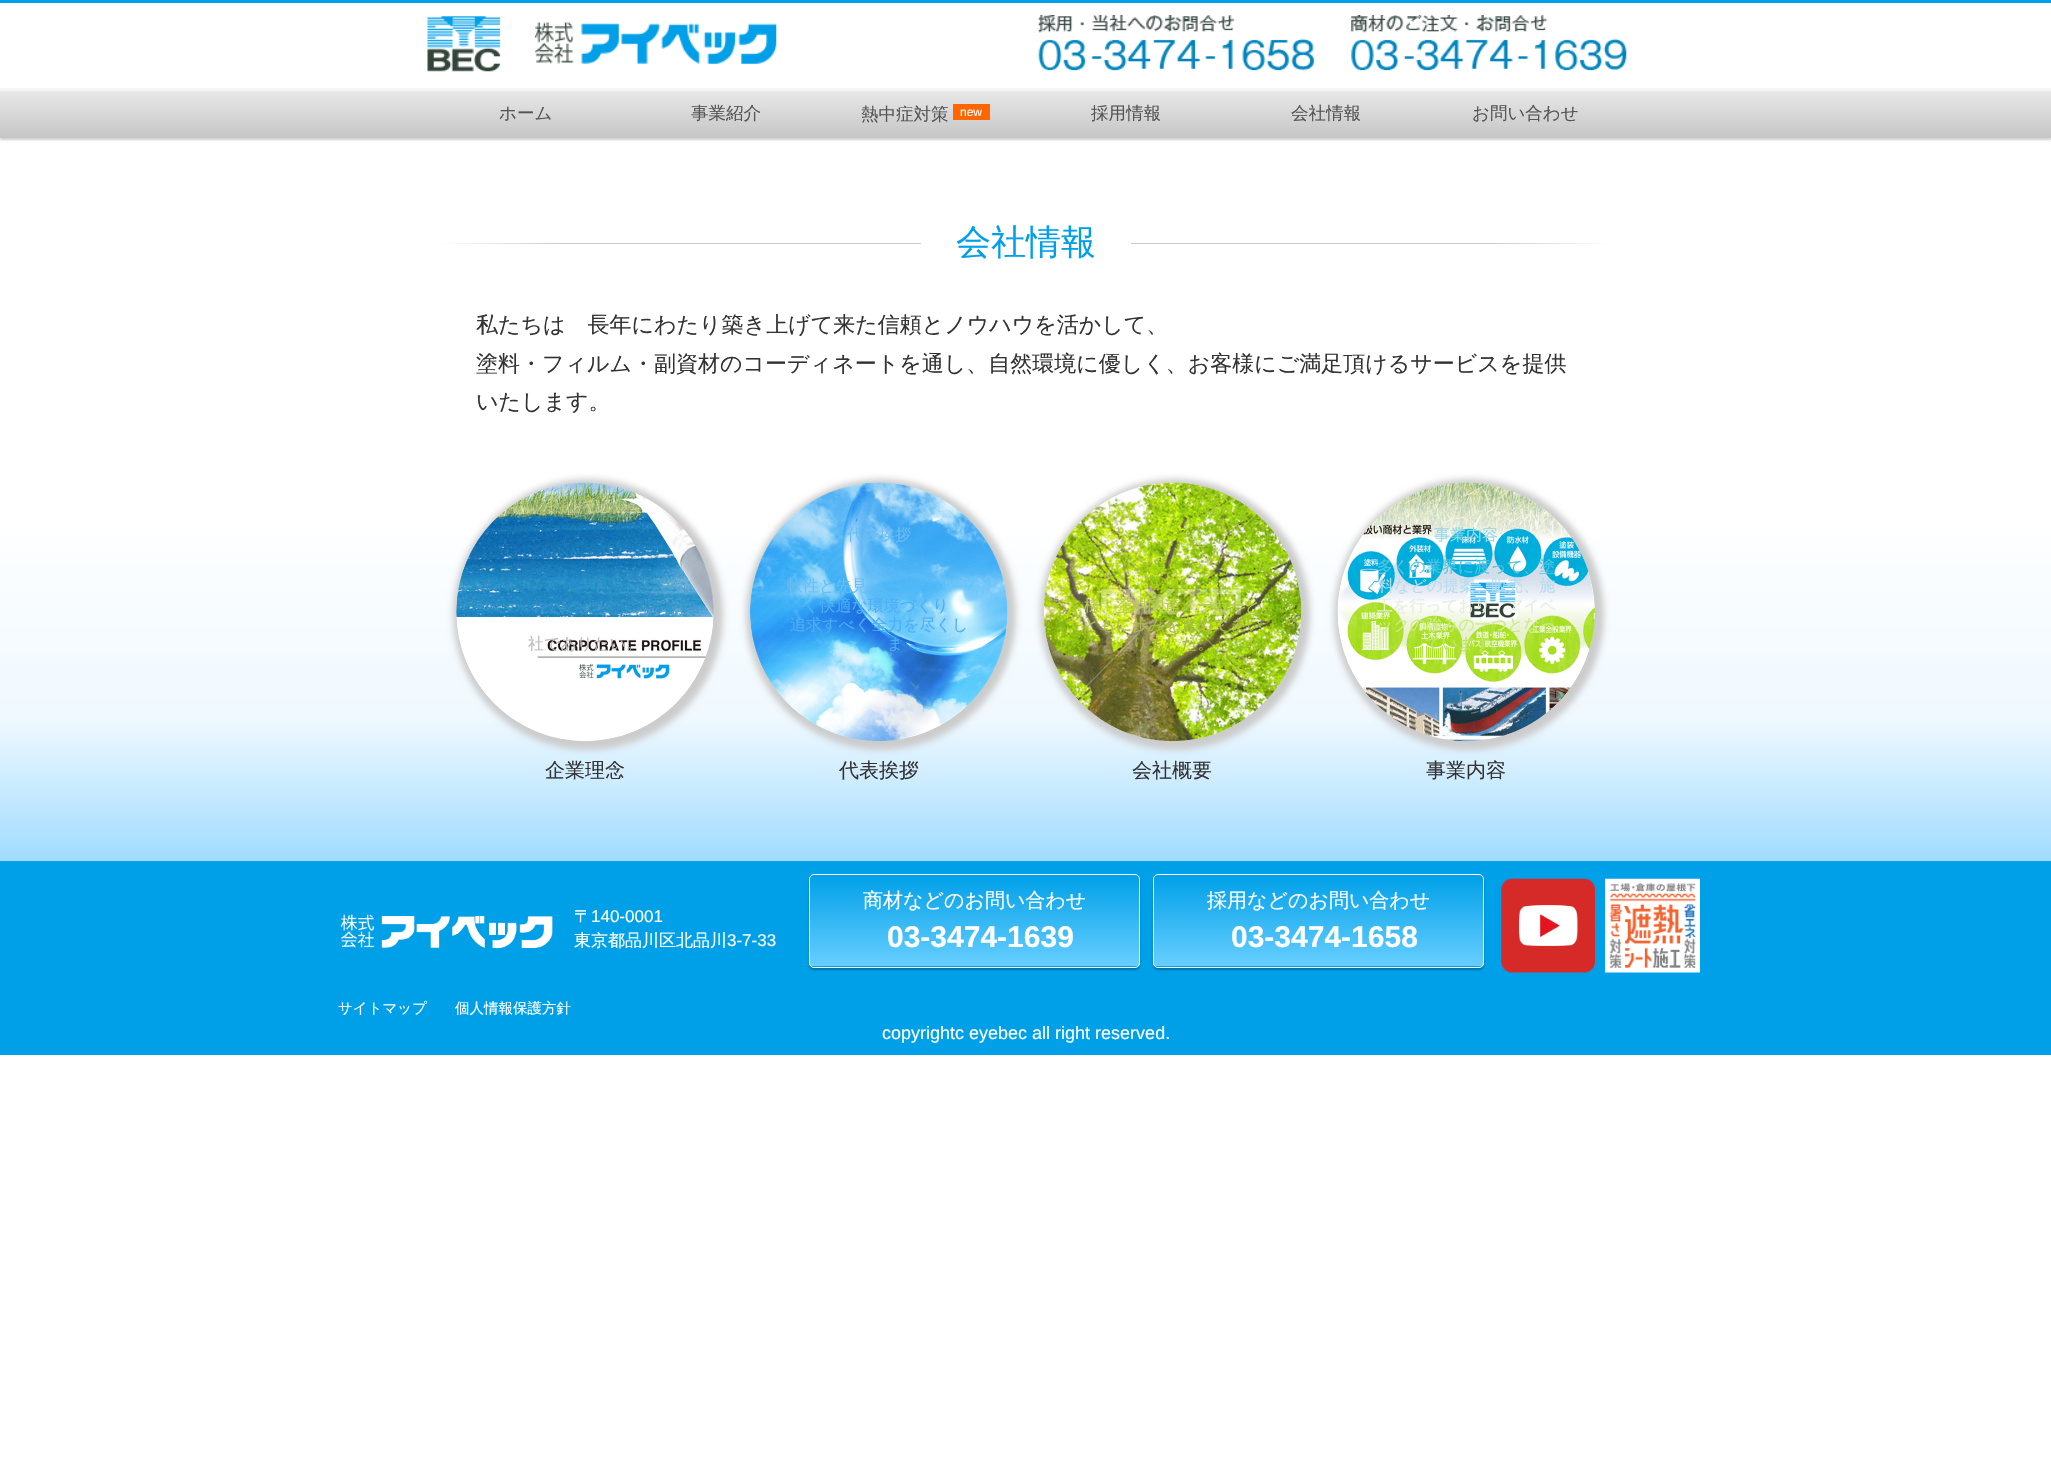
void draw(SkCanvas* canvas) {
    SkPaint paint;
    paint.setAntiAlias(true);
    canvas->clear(0xFFFFFFFF);
    paint.setColor(0xFF00A0E8);
    canvas->drawRect(SkRect::MakeXYWH(0, 0, 2051, 3), paint);
    canvas->drawImageRect(SkImages::DeferredFromEncodedData(SkData::MakeFromFileName("img1.png")), SkRect::MakeXYWH(427, 16, 350, 56), SkSamplingOptions());
    canvas->drawImageRect(SkImages::DeferredFromEncodedData(SkData::MakeFromFileName("img2.png")), SkRect::MakeXYWH(1038, 15, 276, 56), SkSamplingOptions());
    canvas->drawImageRect(SkImages::DeferredFromEncodedData(SkData::MakeFromFileName("img3.png")), SkRect::MakeXYWH(1351, 15, 276, 56), SkSamplingOptions());
    paint.setColor(0x30000000);
    paint.setMaskFilter(SkMaskFilter::MakeBlur(kNormal_SkBlurStyle, 1));
    canvas->drawRect(SkRect::MakeXYWH(0, 90, 2051, 50), paint);
    paint.setMaskFilter(nullptr);
    {
        const SkColor colors[] = {0xFFEAEAEA, 0xFFC6C6C6};
        const float stops[] = {0, 1};
        const SkPoint ends[] = {{1026, 87}, {1026, 138}};
        paint.setShader(SkGradientShader::MakeLinear(ends, colors, stops, 2, SkTileMode::kClamp));
        paint.setAlpha(255);
    }
    canvas->drawRect(SkRect::MakeXYWH(0, 91, 2051, 47), paint);
    paint.setShader(nullptr);
    paint.setColor(0xFFF4F4F4);
    canvas->drawRect(SkRect::MakeXYWH(0, 88, 2051, 3), paint);
    SkFont font1(fontMgr->matchFamilyStyle("WenQuanYi Zen Hei", SkFontStyle(500, SkFontStyle::kNormal_Width, SkFontStyle::kUpright_Slant)), 17.5f);
    font1.setSubpixel(true);
    paint.setColor(0xFF555555);
    canvas->drawString("ホーム", 499, 119, font1, paint);
    canvas->drawString("事業紹介", 691, 119, font1, paint);
    canvas->drawString("熱中症対策", 861, 120, font1, paint);
    paint.setColor(0xFFFF6600);
    canvas->drawRect(SkRect::MakeXYWH(953, 104, 37, 16), paint);
    SkFont font2(fontMgr->matchFamilyStyle("Liberation Sans", SkFontStyle::Normal()), 12);
    font2.setSubpixel(true);
    paint.setColor(0xFFFFFFFF);
    canvas->drawString("new", 960, 116, font2, paint);
    paint.setColor(0xFF555555);
    canvas->drawString("採用情報", 1091, 119, font1, paint);
    canvas->drawString("会社情報", 1291, 119, font1, paint);
    canvas->drawString("お問い合わせ", 1472, 119, font1, paint);
    {
        const SkColor colors[] = {0xFFFFFFFF, 0xFFF0F9FF, 0xFFA1DBFF};
        const float stops[] = {0.5f, 0.8f, 1};
        const SkPoint ends[] = {{1026, 140}, {1026, 861}};
        paint.setShader(SkGradientShader::MakeLinear(ends, colors, stops, 3, SkTileMode::kClamp));
        paint.setAlpha(255);
    }
    canvas->drawRect(SkRect::MakeXYWH(0, 537, 2051, 324), paint);
    {
        const SkColor colors[] = {0xFFFFFFFF, 0xFFCCCCCC, 0xFFCCCCCC, 0xFFFFFFFF};
        const float stops[] = {0, 0.1f, 0.9f, 1};
        const SkPoint ends[] = {{1320, 537}, {732, -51}};
        paint.setShader(SkGradientShader::MakeLinear(ends, colors, stops, 4, SkTileMode::kClamp));
        paint.setAlpha(255);
    }
    canvas->drawRect(SkRect::MakeXYWH(439, 243, 1175, 1), paint);
    paint.setShader(nullptr);
    paint.setColor(0xFFFFFFFF);
    canvas->drawRect(SkRect::MakeXYWH(921, 243, 210, 1), paint);
    SkFont font3(fontMgr->matchFamilyStyle("WenQuanYi Zen Hei", SkFontStyle(500, SkFontStyle::kNormal_Width, SkFontStyle::kUpright_Slant)), 35);
    font3.setSubpixel(true);
    paint.setColor(0xFF00A0E8);
    canvas->drawString("会社情報", 956, 254, font3, paint);
    SkFont font4(fontMgr->matchFamilyStyle("WenQuanYi Zen Hei", SkFontStyle(500, SkFontStyle::kNormal_Width, SkFontStyle::kUpright_Slant)), 22);
    font4.setSubpixel(true);
    paint.setColor(0xFF333333);
    canvas->drawString("私たちは　長年にわたり築き上げて来た信頼とノウハウを活かして、", 476, 332, font4, paint);
    canvas->drawString("塗料・フィルム・副資材のコーディネートを通し、自然環境に優しく、お客様にご満足頂けるサービスを提供", 476, 371, font4, paint);
    canvas->drawString("いたします。", 476, 409, font4, paint);
    paint.setColor(0xFFCCCCCC);
    paint.setMaskFilter(SkMaskFilter::MakeBlur(kNormal_SkBlurStyle, 3));
    canvas->drawRoundRect(SkRect::MakeXYWH(453, 479, 270, 271), 135, 135, paint);
    paint.setMaskFilter(nullptr);
    canvas->drawImageRect(SkImages::DeferredFromEncodedData(SkData::MakeFromFileName("img4.png")), SkRect::MakeXYWH(456, 482, 258, 259), SkSamplingOptions());
    SkFont font5(fontMgr->matchFamilyStyle("WenQuanYi Zen Hei", SkFontStyle(500, SkFontStyle::kNormal_Width, SkFontStyle::kUpright_Slant)), 16);
    font5.setSubpixel(true);
    paint.setColor(0xFFBDBABA);
    canvas->drawString("社でありたい。", 528, 649, font5, paint);
    SkFont font6(fontMgr->matchFamilyStyle("WenQuanYi Zen Hei", SkFontStyle(500, SkFontStyle::kNormal_Width, SkFontStyle::kUpright_Slant)), 20);
    font6.setSubpixel(true);
    paint.setColor(0xFF333333);
    canvas->drawString("企業理念", 545, 777, font6, paint);
    paint.setColor(0xFFCCCCCC);
    paint.setMaskFilter(SkMaskFilter::MakeBlur(kNormal_SkBlurStyle, 3));
    canvas->drawRoundRect(SkRect::MakeXYWH(746, 479, 270, 271), 135, 135, paint);
    paint.setMaskFilter(nullptr);
    canvas->drawImageRect(SkImages::DeferredFromEncodedData(SkData::MakeFromFileName("img5.png")), SkRect::MakeXYWH(750, 482, 258, 260), SkSamplingOptions());
    paint.setColor(0xFF69BDF5);
    canvas->drawString("代表挨拶", 847, 540, font5, paint);
    canvas->drawString("軟性と先見", 787, 591, font5, paint);
    paint.setColor(0xFF4DAEF4);
    canvas->drawString("く快適な環境づくり", 803, 611, font5, paint);
    canvas->drawString("追求すべく全力を尽くし", 790, 630, font5, paint);
    canvas->drawString("ま", 887, 649, font5, paint);
    paint.setColor(0xFF333333);
    canvas->drawString("代表挨拶", 839, 777, font6, paint);
    paint.setColor(0xFFCCCCCC);
    paint.setMaskFilter(SkMaskFilter::MakeBlur(kNormal_SkBlurStyle, 3));
    canvas->drawRoundRect(SkRect::MakeXYWH(1040, 479, 270, 271), 135, 135, paint);
    paint.setMaskFilter(nullptr);
    canvas->drawImageRect(SkImages::DeferredFromEncodedData(SkData::MakeFromFileName("img6.png")), SkRect::MakeXYWH(1044, 482, 258, 260), SkSamplingOptions());
    paint.setColor(0xFFB8CA56);
    canvas->drawString("様、塗料関連メーカーと", 1084, 611, font5, paint);
    paint.setColor(0xFFAABC45);
    canvas->drawString("ともに歩みを進めてまい", 1083, 630, font5, paint);
    paint.setColor(0xFFA6B835);
    canvas->drawString("りました。", 1132, 649, font5, paint);
    paint.setColor(0xFF333333);
    canvas->drawString("会社概要", 1132, 777, font6, paint);
    paint.setColor(0xFFCCCCCC);
    paint.setMaskFilter(SkMaskFilter::MakeBlur(kNormal_SkBlurStyle, 3));
    canvas->drawRoundRect(SkRect::MakeXYWH(1334, 479, 270, 271), 135, 135, paint);
    paint.setMaskFilter(nullptr);
    canvas->drawImageRect(SkImages::DeferredFromEncodedData(SkData::MakeFromFileName("img7.png")), SkRect::MakeXYWH(1337, 482, 258, 260), SkSamplingOptions());
    paint.setColor(0xFF94D8E6);
    canvas->drawString("事業内容", 1434, 540, font5, paint);
    paint.setColor(0xFF53C5E4);
    canvas->drawString("多くの業界に渡って、塗", 1377, 572, font5, paint);
    paint.setColor(0xFFB5DDEF);
    canvas->drawString("料などの提案、販売、施", 1378, 591, font5, paint);
    paint.setColor(0xFFE5EEE1);
    canvas->drawString("工を行っており、アイベ", 1377, 611, font5, paint);
    paint.setColor(0xFFCEEB87);
    canvas->drawString("ックの強みの一つとなっ", 1377, 630, font5, paint);
    paint.setColor(0xFFC0E763);
    canvas->drawString("ています。", 1425, 649, font5, paint);
    paint.setColor(0xFF333333);
    canvas->drawString("事業内容", 1426, 777, font6, paint);
    paint.setColor(0xFF00A0E8);
    canvas->drawRect(SkRect::MakeXYWH(0, 861, 2051, 194), paint);
    canvas->drawImageRect(SkImages::DeferredFromEncodedData(SkData::MakeFromFileName("img8.png")), SkRect::MakeXYWH(340, 914, 213, 35), SkSamplingOptions());
    SkFont font7(fontMgr->matchFamilyStyle("WenQuanYi Zen Hei", SkFontStyle(500, SkFontStyle::kNormal_Width, SkFontStyle::kUpright_Slant)), 17);
    font7.setSubpixel(true);
    paint.setColor(0xFFFFFFFF);
    canvas->drawString("〒", 574, 922, font7, paint);
    SkFont font8(fontMgr->matchFamilyStyle("Liberation Sans", SkFontStyle::Normal()), 17);
    font8.setSubpixel(true);
    canvas->drawString("140-0001", 591, 922, font8, paint);
    canvas->drawString("東京都品川区北品川", 574, 946, font7, paint);
    canvas->drawString("3-7-33", 727, 946, font8, paint);
    paint.setColor(0x4A000000);
    paint.setMaskFilter(SkMaskFilter::MakeBlur(kNormal_SkBlurStyle, 1));
    canvas->drawRoundRect(SkRect::MakeXYWH(809, 876, 331, 94), 5, 5, paint);
    paint.setMaskFilter(nullptr);
    canvas->save();
    canvas->clipPath(SkPathBuilder().moveTo(814, 874).lineTo(1135, 874).cubicTo(1138, 874, 1140, 876, 1140, 879).lineTo(1140, 963).cubicTo(1140, 966, 1138, 968, 1135, 968).lineTo(814, 968).cubicTo(811, 968, 809, 966, 809, 963).lineTo(809, 879).cubicTo(809, 876, 811, 874, 814, 874).close().detach(), true);
    {
        const SkColor colors[] = {0xFF00A0E8, 0xFF67CEFF};
        const float stops[] = {0, 1};
        const SkPoint ends[] = {{974, 875}, {974, 966}};
        paint.setShader(SkGradientShader::MakeLinear(ends, colors, stops, 2, SkTileMode::kClamp));
        paint.setAlpha(255);
    }
    canvas->drawRect(SkRect::MakeXYWH(809, 875, 331, 91), paint);
    {
        const SkColor colors[] = {0xFF00A0E8, 0xFF67CEFF};
        const float stops[] = {0, 1};
        const SkPoint ends[] = {{974, 966}, {974, 1058}};
        paint.setShader(SkGradientShader::MakeLinear(ends, colors, stops, 2, SkTileMode::kClamp));
        paint.setAlpha(255);
    }
    canvas->drawRect(SkRect::MakeXYWH(809, 966, 331, 2), paint);
    canvas->restore();
    paint.setStyle(SkPaint::kStroke_Style);
    paint.setStrokeWidth(1);
    paint.setShader(nullptr);
    paint.setColor(0xFFFFFFFF);
    canvas->drawRoundRect(SkRect::MakeXYWH(809.5f, 874.5f, 330, 93), 4.5f, 4.5f, paint);
    paint.setStyle(SkPaint::kFill_Style);
    canvas->drawString("商材などのお問い合わせ", 863, 907, font6, paint);
    SkFont font9(fontMgr->matchFamilyStyle("Liberation Sans", SkFontStyle::Bold()), 30);
    font9.setSubpixel(true);
    canvas->drawString("03-3474-1639", 887, 947, font9, paint);
    paint.setColor(0x4A000000);
    paint.setMaskFilter(SkMaskFilter::MakeBlur(kNormal_SkBlurStyle, 1));
    canvas->drawRoundRect(SkRect::MakeXYWH(1153, 876, 331, 94), 5, 5, paint);
    paint.setMaskFilter(nullptr);
    canvas->save();
    canvas->clipPath(SkPathBuilder().moveTo(1158, 874).lineTo(1479, 874).cubicTo(1482, 874, 1484, 876, 1484, 879).lineTo(1484, 963).cubicTo(1484, 966, 1482, 968, 1479, 968).lineTo(1158, 968).cubicTo(1155, 968, 1153, 966, 1153, 963).lineTo(1153, 879).cubicTo(1153, 876, 1155, 874, 1158, 874).close().detach(), true);
    {
        const SkColor colors[] = {0xFF00A0E8, 0xFF67CEFF};
        const float stops[] = {0, 1};
        const SkPoint ends[] = {{1318, 875}, {1318, 966}};
        paint.setShader(SkGradientShader::MakeLinear(ends, colors, stops, 2, SkTileMode::kClamp));
        paint.setAlpha(255);
    }
    canvas->drawRect(SkRect::MakeXYWH(1153, 875, 331, 91), paint);
    {
        const SkColor colors[] = {0xFF00A0E8, 0xFF67CEFF};
        const float stops[] = {0, 1};
        const SkPoint ends[] = {{1318, 966}, {1318, 1058}};
        paint.setShader(SkGradientShader::MakeLinear(ends, colors, stops, 2, SkTileMode::kClamp));
        paint.setAlpha(255);
    }
    canvas->drawRect(SkRect::MakeXYWH(1153, 966, 331, 2), paint);
    canvas->restore();
    paint.setStyle(SkPaint::kStroke_Style);
    paint.setShader(nullptr);
    paint.setColor(0xFFFFFFFF);
    canvas->drawRoundRect(SkRect::MakeXYWH(1153.5f, 874.5f, 330, 93), 4.5f, 4.5f, paint);
    paint.setStyle(SkPaint::kFill_Style);
    canvas->drawString("採用などのお問い合わせ", 1207, 907, font6, paint);
    canvas->drawString("03-3474-1658", 1231, 947, font9, paint);
    canvas->drawImageRect(SkImages::DeferredFromEncodedData(SkData::MakeFromFileName("img9.png")), SkRect::MakeXYWH(1501, 878, 94, 95), SkSamplingOptions());
    canvas->drawImageRect(SkImages::DeferredFromEncodedData(SkData::MakeFromFileName("img10.png")), SkRect::MakeXYWH(1605, 878, 95, 95), SkSamplingOptions());
    SkFont font10(fontMgr->matchFamilyStyle("WenQuanYi Zen Hei", SkFontStyle(500, SkFontStyle::kNormal_Width, SkFontStyle::kUpright_Slant)), 14.5f);
    font10.setSubpixel(true);
    canvas->drawString("サイトマップ", 338, 1013, font10, paint);
    canvas->drawString("個人情報保護方針", 455, 1013, font10, paint);
    SkFont font11(fontMgr->matchFamilyStyle("Liberation Sans", SkFontStyle::Normal()), 18);
    font11.setSubpixel(true);
    canvas->drawString("copyrightc eyebec all right reserved.", 882, 1039, font11, paint);
}
